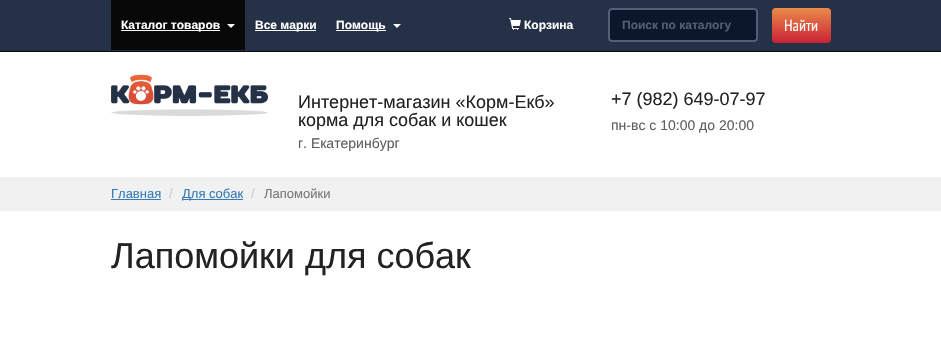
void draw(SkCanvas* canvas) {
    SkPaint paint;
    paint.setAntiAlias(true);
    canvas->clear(0xFFFFFFFF);
    paint.setColor(0xFF253146);
    canvas->drawRect(SkRect::MakeXYWH(0, 0, 941, 51), paint);
    paint.setColor(0xFF080808);
    canvas->drawRect(SkRect::MakeXYWH(0, 51, 941, 1), paint);
    canvas->drawRect(SkRect::MakeXYWH(111, 0, 134, 50), paint);
    paint.setColor(0xFFFFFFFF);
    canvas->drawRect(SkRect::MakeXYWH(121, 30, 99, 1), paint);
    SkFont font1(fontMgr->matchFamilyStyle("Liberation Sans", SkFontStyle::Bold()), 12);
    font1.setSubpixel(true);
    canvas->drawString("Каталог товаров", 121, 29, font1, paint);
    canvas->drawPath(SkPathBuilder().moveTo(227, 24).lineTo(235, 24).lineTo(231, 28).close().detach(), paint);
    canvas->drawRect(SkRect::MakeXYWH(255, 30, 61, 1), paint);
    canvas->drawString("Все марки", 255, 29, font1, paint);
    canvas->drawRect(SkRect::MakeXYWH(336, 30, 50, 1), paint);
    canvas->drawString("Помощь", 336, 29, font1, paint);
    canvas->drawPath(SkPathBuilder().moveTo(393, 24).lineTo(401, 24).lineTo(397, 28).close().detach(), paint);
    canvas->drawImageRect(SkImages::DeferredFromEncodedData(SkData::MakeFromFileName("img1.png")), SkRect::MakeXYWH(509, 18, 12, 12), SkSamplingOptions());
    canvas->drawString("Корзина", 524, 29, font1, paint);
    paint.setColor(0xFF0B182B);
    canvas->drawRoundRect(SkRect::MakeXYWH(608, 8, 150, 34), 4, 4, paint);
    paint.setColor(0xFF0A1628);
    canvas->drawPath(SkPathBuilder().moveTo(612, 11).lineTo(754, 11).cubicTo(755, 11, 756, 12, 756, 13).cubicTo(756, 12, 756, 11, 755, 10).lineTo(636, 10).cubicTo(632, 10, 610, 5, 610, 13).cubicTo(610, 12, 611, 11, 612, 11).close().detach(), paint);
    paint.setStyle(SkPaint::kStroke_Style);
    paint.setStrokeWidth(2);
    paint.setColor(0xFF545F77);
    canvas->drawRoundRect(SkRect::MakeXYWH(609, 9, 148, 32), 3, 3, paint);
    paint.setStyle(SkPaint::kFill_Style);
    canvas->drawString("Поиск по каталогу", 622, 29, font1, paint);
    {
        const SkColor colors[] = {0xFFE98A4A, 0xFFCB2134};
        const float stops[] = {0, 1};
        const SkPoint ends[] = {{802, 8}, {802, 43}};
        paint.setShader(SkGradientShader::MakeLinear(ends, colors, stops, 2, SkTileMode::kClamp));
        paint.setAlpha(255);
    }
    canvas->drawRoundRect(SkRect::MakeXYWH(772, 8, 59, 35), 4, 4, paint);
    SkFont font2(fontMgr->matchFamilyStyle("PT Sans Narrow", SkFontStyle::Normal()), 16);
    font2.setSubpixel(true);
    paint.setShader(nullptr);
    paint.setColor(0xFFFFFFFF);
    canvas->drawString("Найти", 784, 31, font2, paint);
    canvas->drawImageRect(SkImages::DeferredFromEncodedData(SkData::MakeFromFileName("img2.png")), SkRect::MakeXYWH(111, 74, 157, 42), SkSamplingOptions());
    SkFont font3(fontMgr->matchFamilyStyle("Liberation Sans", SkFontStyle::Normal()), 18);
    font3.setSubpixel(true);
    paint.setColor(0xFF222222);
    canvas->drawString("Интернет-магазин «Корм-Екб»", 298, 108, font3, paint);
    canvas->drawString("корма для собак и кошек", 298, 126, font3, paint);
    SkFont font4(fontMgr->matchFamilyStyle("Liberation Sans", SkFontStyle::Normal()), 14);
    font4.setSubpixel(true);
    paint.setColor(0xFF5E5E5E);
    canvas->drawString("г. Екатеринбург", 298, 148, font4, paint);
    paint.setColor(0xFF222222);
    canvas->drawString("+7 (982) 649-07-97", 611, 105, font3, paint);
    paint.setColor(0xFF5E5E5E);
    canvas->drawString("пн-вс с 10:00 до 20:00", 611, 130, font4, paint);
    paint.setColor(0xFFF1F1F1);
    canvas->drawRect(SkRect::MakeXYWH(0, 177, 941, 34), paint);
    SkFont font5(fontMgr->matchFamilyStyle("Liberation Sans", SkFontStyle::Normal()), 13);
    font5.setSubpixel(true);
    paint.setColor(0xFF337AB7);
    canvas->drawString("Главная", 111, 198, font5, paint);
    canvas->drawRect(SkRect::MakeXYWH(111, 199, 50, 1), paint);
    paint.setColor(0xFFCCCCCC);
    canvas->drawString("/", 169, 198, font5, paint);
    paint.setColor(0xFF337AB7);
    canvas->drawRect(SkRect::MakeXYWH(182, 199, 61, 1), paint);
    canvas->drawString("Для собак", 182, 198, font5, paint);
    paint.setColor(0xFFCCCCCC);
    canvas->drawString("/", 251, 198, font5, paint);
    paint.setColor(0xFF777777);
    canvas->drawString("Лапомойки", 264, 198, font5, paint);
    SkFont font6(fontMgr->matchFamilyStyle("Liberation Sans", SkFontStyle::Normal()), 36);
    font6.setSubpixel(true);
    paint.setColor(0xFF222222);
    canvas->drawString("Лапомойки для собак", 111, 268, font6, paint);
}
